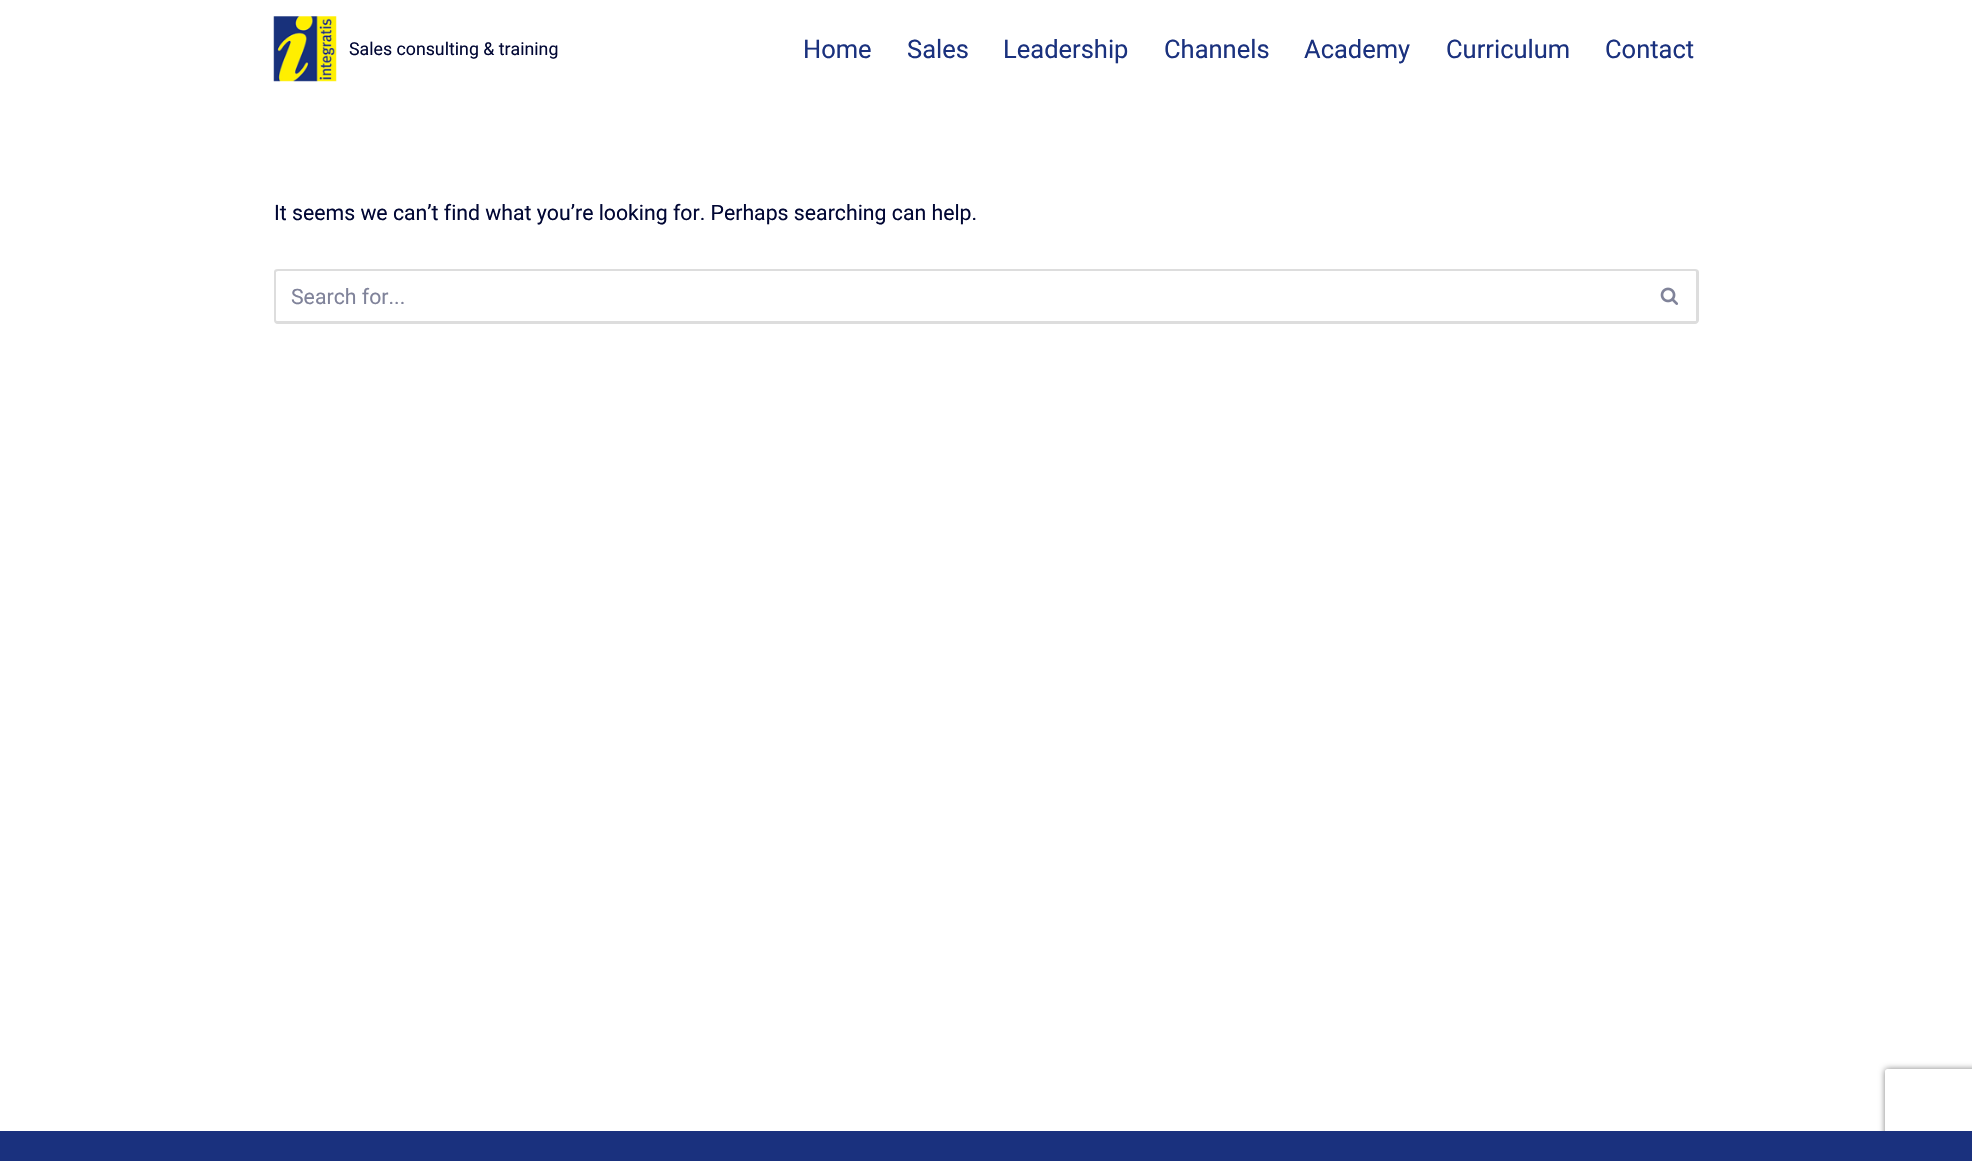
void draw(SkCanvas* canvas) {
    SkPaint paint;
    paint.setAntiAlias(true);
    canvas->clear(0xFFFFFFFF);
    canvas->drawImageRect(SkImages::DeferredFromEncodedData(SkData::MakeFromFileName("img1.png")), SkRect::MakeXYWH(273, 16, 64, 66), SkSamplingOptions());
    SkFont font1(fontMgr->matchFamilyStyle("Roboto", SkFontStyle::Normal()), 17.75f);
    font1.setSubpixel(true);
    paint.setColor(0xFF010734);
    canvas->drawString("Sales consulting & training", 349, 55, font1, paint);
    SkFont font2(fontMgr->matchFamilyStyle("Roboto", SkFontStyle::Normal()), 25.5f);
    font2.setSubpixel(true);
    paint.setColor(0xFF1A317E);
    canvas->drawString("Home", 803, 58, font2, paint);
    canvas->drawString("Sales", 907, 58, font2, paint);
    canvas->drawString("Leadership", 1003, 58, font2, paint);
    canvas->drawString("Channels", 1164, 58, font2, paint);
    canvas->drawString("Academy", 1304, 58, font2, paint);
    canvas->drawString("Curriculum", 1446, 58, font2, paint);
    canvas->drawString("Contact", 1605, 58, font2, paint);
    SkFont font3(fontMgr->matchFamilyStyle("Roboto", SkFontStyle::Normal()), 21.25f);
    font3.setSubpixel(true);
    paint.setColor(0xFF010734);
    canvas->drawString("It seems we can’t find what you’re looking for. Perhaps searching can help.", 274, 220, font3, paint);
    paint.setColor(0xFFDDDDDD);
    canvas->drawPath(SkPathBuilder(SkPathFillType::kEvenOdd).moveTo(278, 269).lineTo(1642, 269).lineTo(1642, 324).lineTo(278, 324).cubicTo(275, 324, 274, 322, 274, 320).lineTo(274, 272).cubicTo(274, 270, 275, 269, 278, 269).close().moveTo(278, 271).lineTo(1642, 271).lineTo(1642, 321).lineTo(278, 321).cubicTo(277, 321, 276, 321, 276, 320).lineTo(276, 272).cubicTo(276, 272, 277, 271, 278, 271).close().detach(), paint);
    paint.setColor(0xFF80839A);
    canvas->drawString("Search for...", 291, 304, font3, paint);
    paint.setColor(0xFFDDDDDD);
    canvas->drawPath(SkPathBuilder(SkPathFillType::kEvenOdd).moveTo(1642, 269).lineTo(1695, 269).cubicTo(1697, 269, 1699, 270, 1699, 272).lineTo(1699, 320).cubicTo(1699, 322, 1697, 324, 1695, 324).lineTo(1642, 324).close().moveTo(1642, 271).lineTo(1695, 271).cubicTo(1696, 271, 1696, 272, 1696, 272).lineTo(1696, 320).cubicTo(1696, 321, 1696, 321, 1695, 321).lineTo(1642, 321).close().detach(), paint);
    canvas->drawImageRect(SkImages::DeferredFromEncodedData(SkData::MakeFromFileName("img2.png")), SkRect::MakeXYWH(1660, 287, 18, 18), SkSamplingOptions());
    canvas->save();
    canvas->clipPath(SkPathBuilder(SkPathFillType::kEvenOdd).moveTo(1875, 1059).lineTo(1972, 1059).lineTo(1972, 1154).lineTo(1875, 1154).close().moveTo(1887.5f, 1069).lineTo(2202.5f, 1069).cubicTo(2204, 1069, 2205, 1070, 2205, 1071.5f).lineTo(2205, 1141.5f).cubicTo(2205, 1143, 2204, 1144, 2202.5f, 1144).lineTo(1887.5f, 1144).cubicTo(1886, 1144, 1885, 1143, 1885, 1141.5f).lineTo(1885, 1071.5f).cubicTo(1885, 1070, 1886, 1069, 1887.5f, 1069).close().detach(), true);
    paint.setColor(0xFF808080);
    paint.setMaskFilter(SkMaskFilter::MakeBlur(kNormal_SkBlurStyle, 3));
    canvas->drawRoundRect(SkRect::MakeXYWH(1885, 1069, 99, 75), 2.5f, 2.5f, paint);
    paint.setMaskFilter(nullptr);
    canvas->restore();
    paint.setColor(0xFF1A317E);
    canvas->drawRect(SkRect::MakeXYWH(0, 1131, 1972, 30), paint);
}
